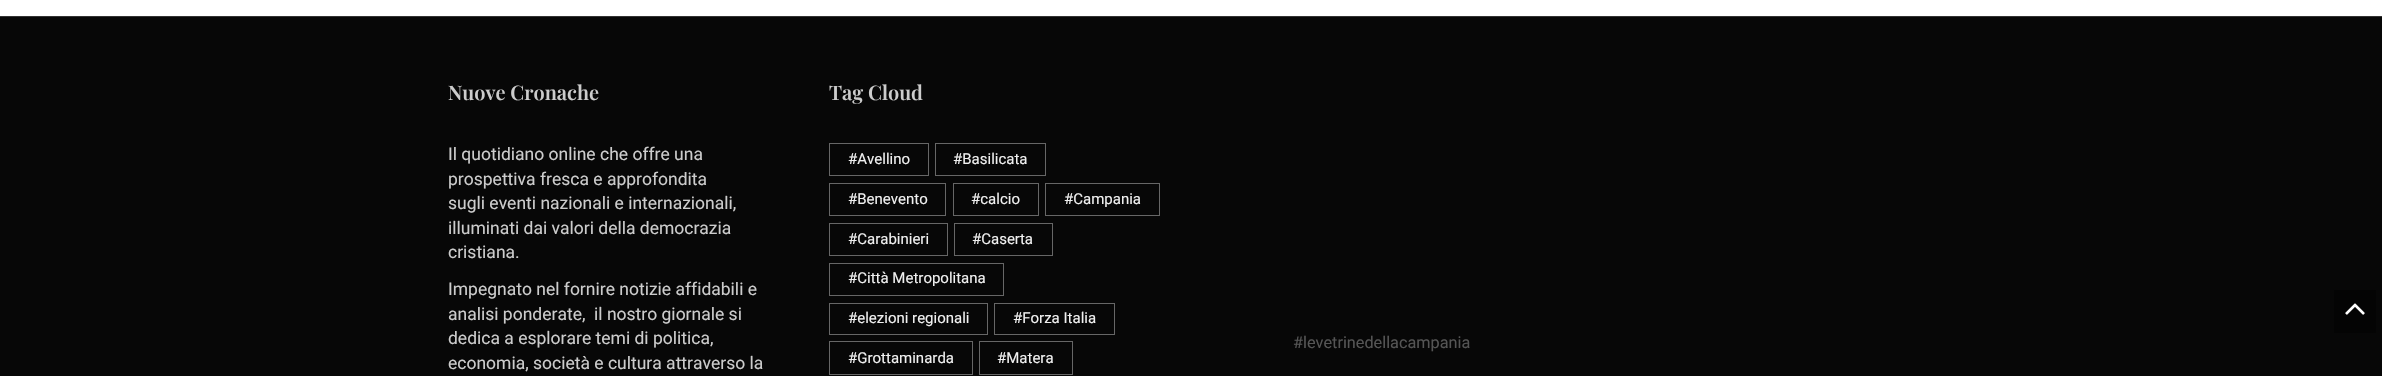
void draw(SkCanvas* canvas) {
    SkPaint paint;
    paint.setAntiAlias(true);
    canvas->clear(0xFFFFFFFF);
    paint.setColor(0xFF070707);
    canvas->drawRect(SkRect::MakeXYWH(0, 17, 2382, 359), paint);
    paint.setColor(0xFF333333);
    canvas->drawRect(SkRect::MakeXYWH(0, 16, 2382, 1), paint);
    SkFont font1(fontMgr->matchFamilyStyle("Playfair Display", SkFontStyle(600, SkFontStyle::kNormal_Width, SkFontStyle::kUpright_Slant)), 20);
    font1.setSubpixel(true);
    paint.setColor(0xFFCCCCCC);
    canvas->drawString("Nuove Cronache", 448, 100, font1, paint);
    SkFont font2(fontMgr->matchFamilyStyle("Roboto", SkFontStyle::Normal()), 17.5f);
    font2.setSubpixel(true);
    canvas->drawString("Il quotidiano online che offre una", 448, 160, font2, paint);
    canvas->drawString("prospettiva fresca e approfondita", 448, 185, font2, paint);
    canvas->drawString("sugli eventi nazionali e internazionali,", 448, 209, font2, paint);
    canvas->drawString("illuminati dai valori della democrazia", 448, 234, font2, paint);
    canvas->drawString("cristiana.", 448, 258, font2, paint);
    canvas->drawString("Impegnato nel fornire notizie affidabili e", 448, 295, font2, paint);
    canvas->drawString("analisi ponderate,  il nostro giornale si", 448, 320, font2, paint);
    canvas->drawString("dedica a esplorare temi di politica,", 448, 344, font2, paint);
    canvas->drawString("economia, società e cultura attraverso la", 448, 369, font2, paint);
    canvas->drawString("Tag Cloud", 829, 100, font1, paint);
    paint.setStyle(SkPaint::kStroke_Style);
    paint.setStrokeWidth(1);
    paint.setColor(0xFF666666);
    canvas->drawRect(SkRect::MakeXYWH(829.5f, 143.5f, 99, 32), paint);
    SkFont font3(fontMgr->matchFamilyStyle("Roboto", SkFontStyle::Normal()), 15);
    font3.setSubpixel(true);
    paint.setStyle(SkPaint::kFill_Style);
    paint.setColor(0xFFF0F0F0);
    canvas->drawString("#Avellino", 848, 164, font3, paint);
    paint.setStyle(SkPaint::kStroke_Style);
    paint.setColor(0xFF666666);
    canvas->drawRect(SkRect::MakeXYWH(935.5f, 143.5f, 110, 32), paint);
    paint.setStyle(SkPaint::kFill_Style);
    paint.setColor(0xFFF0F0F0);
    canvas->drawString("#Basilicata", 953, 164, font3, paint);
    paint.setStyle(SkPaint::kStroke_Style);
    paint.setColor(0xFF666666);
    canvas->drawRect(SkRect::MakeXYWH(829.5f, 183.5f, 116, 32), paint);
    paint.setStyle(SkPaint::kFill_Style);
    paint.setColor(0xFFF0F0F0);
    canvas->drawString("#Benevento", 848, 204, font3, paint);
    paint.setStyle(SkPaint::kStroke_Style);
    paint.setColor(0xFF666666);
    canvas->drawRect(SkRect::MakeXYWH(953.5f, 183.5f, 85, 32), paint);
    paint.setStyle(SkPaint::kFill_Style);
    paint.setColor(0xFFF0F0F0);
    canvas->drawString("#calcio", 971, 204, font3, paint);
    paint.setStyle(SkPaint::kStroke_Style);
    paint.setColor(0xFF666666);
    canvas->drawRect(SkRect::MakeXYWH(1045.5f, 183.5f, 114, 32), paint);
    paint.setStyle(SkPaint::kFill_Style);
    paint.setColor(0xFFF0F0F0);
    canvas->drawString("#Campania", 1064, 204, font3, paint);
    paint.setStyle(SkPaint::kStroke_Style);
    paint.setColor(0xFF666666);
    canvas->drawRect(SkRect::MakeXYWH(829.5f, 223.5f, 118, 32), paint);
    paint.setStyle(SkPaint::kFill_Style);
    paint.setColor(0xFFF0F0F0);
    canvas->drawString("#Carabinieri", 848, 244, font3, paint);
    paint.setStyle(SkPaint::kStroke_Style);
    paint.setColor(0xFF666666);
    canvas->drawRect(SkRect::MakeXYWH(954.5f, 223.5f, 98, 32), paint);
    paint.setStyle(SkPaint::kFill_Style);
    paint.setColor(0xFFF0F0F0);
    canvas->drawString("#Caserta", 972, 244, font3, paint);
    paint.setStyle(SkPaint::kStroke_Style);
    paint.setColor(0xFF666666);
    canvas->drawRect(SkRect::MakeXYWH(829.5f, 263.5f, 174, 32), paint);
    paint.setStyle(SkPaint::kFill_Style);
    paint.setColor(0xFFF0F0F0);
    canvas->drawString("#Città Metropolitana", 848, 283, font3, paint);
    paint.setStyle(SkPaint::kStroke_Style);
    paint.setColor(0xFF666666);
    canvas->drawRect(SkRect::MakeXYWH(829.5f, 303.5f, 158, 31), paint);
    paint.setStyle(SkPaint::kFill_Style);
    paint.setColor(0xFFF0F0F0);
    canvas->drawString("#elezioni regionali", 848, 323, font3, paint);
    paint.setStyle(SkPaint::kStroke_Style);
    paint.setColor(0xFF666666);
    canvas->drawRect(SkRect::MakeXYWH(994.5f, 303.5f, 120, 31), paint);
    paint.setStyle(SkPaint::kFill_Style);
    paint.setColor(0xFFF0F0F0);
    canvas->drawString("#Forza Italia", 1013, 323, font3, paint);
    paint.setStyle(SkPaint::kStroke_Style);
    paint.setColor(0xFF666666);
    canvas->drawRect(SkRect::MakeXYWH(829.5f, 341.5f, 143, 33), paint);
    paint.setStyle(SkPaint::kFill_Style);
    paint.setColor(0xFFF0F0F0);
    canvas->drawString("#Grottaminarda", 848, 363, font3, paint);
    paint.setStyle(SkPaint::kStroke_Style);
    paint.setColor(0xFF666666);
    canvas->drawRect(SkRect::MakeXYWH(979.5f, 341.5f, 93, 33), paint);
    paint.setStyle(SkPaint::kFill_Style);
    paint.setColor(0xFFF0F0F0);
    canvas->drawString("#Matera", 997, 363, font3, paint);
    paint.setColor(0xFF040404);
    canvas->drawRect(SkRect::MakeXYWH(2334, 290, 42, 43), paint);
    canvas->drawImageRect(SkImages::DeferredFromEncodedData(SkData::MakeFromFileName("img1.png")), SkRect::MakeXYWH(2345, 303, 20, 12), SkSamplingOptions());
    SkFont font4(fontMgr->matchFamilyStyle("Roboto", SkFontStyle::Normal()), 16.25f);
    font4.setSubpixel(true);
    paint.setColor(0xFF555555);
    canvas->drawString("#levetrinedellacampania", 1293, 348, font4, paint);
}
